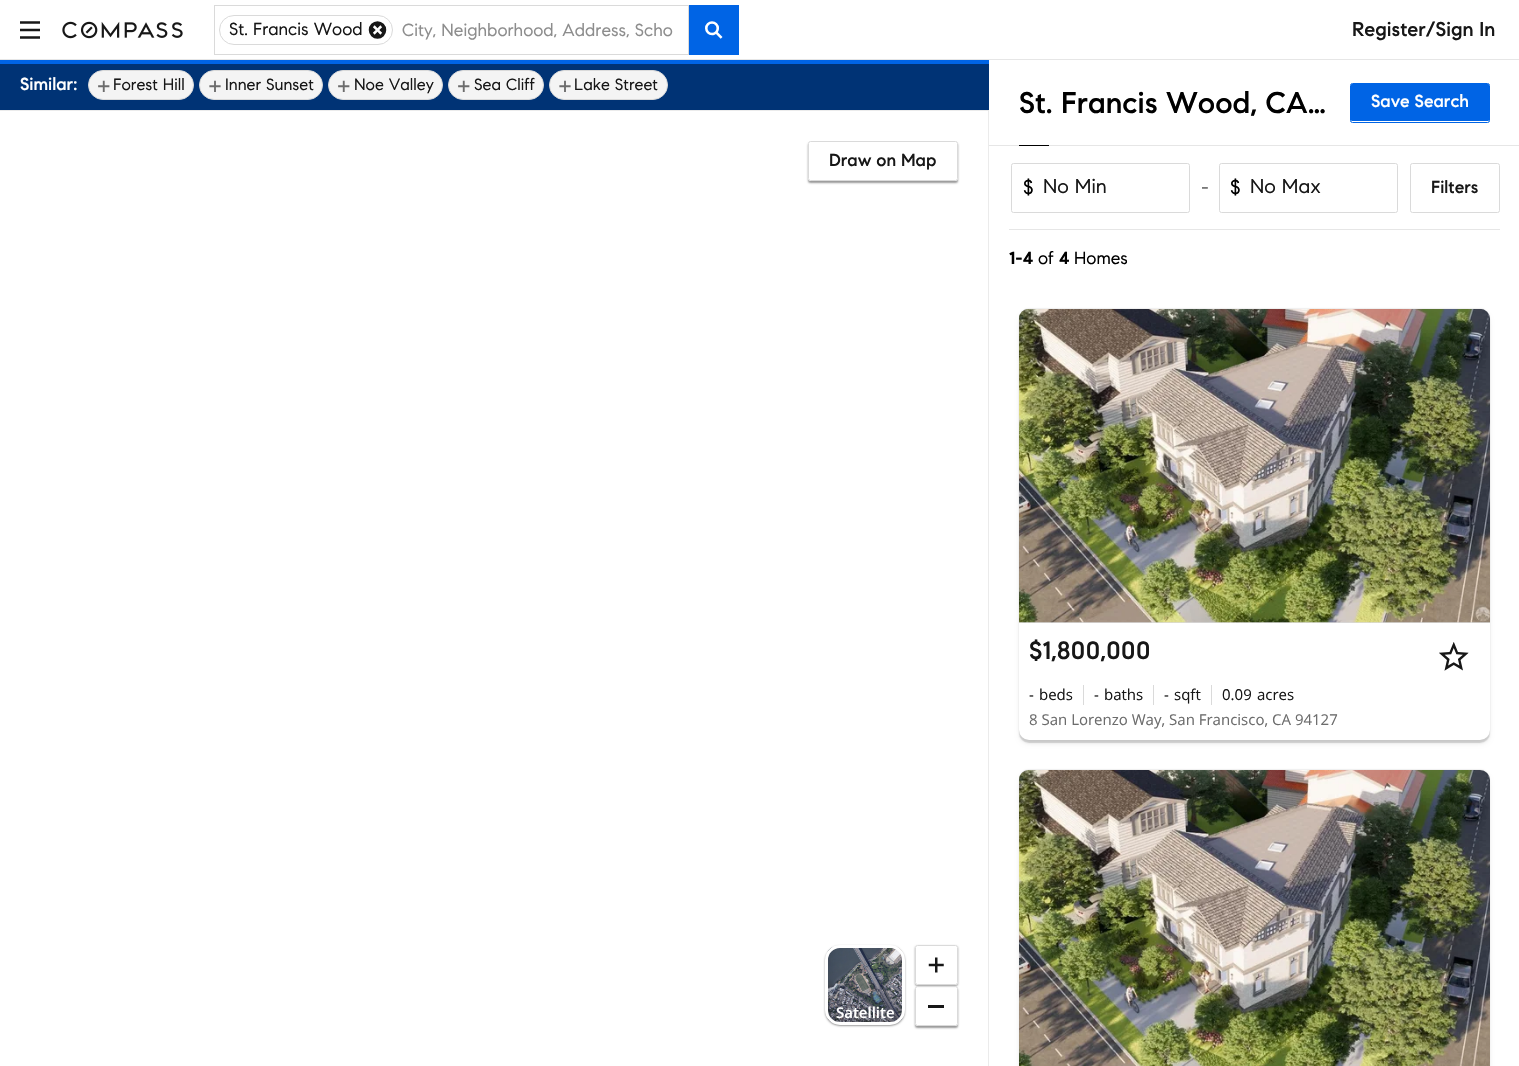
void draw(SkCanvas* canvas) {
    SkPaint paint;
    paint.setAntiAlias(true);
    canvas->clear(0xFFFFFFFF);
    paint.setColor(0xFFE6E6E6);
    canvas->drawRect(SkRect::MakeXYWH(0, 59, 1519, 1), paint);
    canvas->drawImageRect(SkImages::DeferredFromEncodedData(SkData::MakeFromFileName("img1.png")), SkRect::MakeXYWH(20, 21, 20, 18), SkSamplingOptions());
    canvas->drawImageRect(SkImages::DeferredFromEncodedData(SkData::MakeFromFileName("img2.png")), SkRect::MakeXYWH(62, 21, 121, 18), SkSamplingOptions());
    paint.setStyle(SkPaint::kStroke_Style);
    paint.setStrokeWidth(1);
    paint.setColor(0xFFDADADA);
    canvas->drawRect(SkRect::MakeXYWH(214.5f, 5.5f, 474, 49), paint);
    canvas->drawRoundRect(SkRect::MakeXYWH(219.5f, 15.5f, 173, 29), 14.5f, 14.5f, paint);
    SkFont font1(fontMgr->matchFamilyStyle("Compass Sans", SkFontStyle::Normal()), 17.5f);
    font1.setSubpixel(true);
    paint.setStyle(SkPaint::kFill_Style);
    paint.setColor(0xFF171717);
    canvas->drawString("St. Francis Wood", 229, 35, font1, paint);
    canvas->drawImageRect(SkImages::DeferredFromEncodedData(SkData::MakeFromFileName("img3.png")), SkRect::MakeXYWH(368, 21, 19, 18), SkSamplingOptions());
    paint.setColor(0xFF8D8D8D);
    canvas->drawString("City, Neighborhood, Address, Scho", 402, 36, font1, paint);
    paint.setColor(0xFF0064E5);
    canvas->drawRect(SkRect::MakeXYWH(689, 5, 50, 50), paint);
    canvas->drawImageRect(SkImages::DeferredFromEncodedData(SkData::MakeFromFileName("img4.png")), SkRect::MakeXYWH(705, 21, 18, 18), SkSamplingOptions());
    SkFont font2(fontMgr->matchFamilyStyle("Compass Sans", SkFontStyle(500, SkFontStyle::kNormal_Width, SkFontStyle::kUpright_Slant)), 20);
    font2.setSubpixel(true);
    paint.setColor(0xFF171717);
    canvas->drawString("Register/Sign In", 1352, 36, font2, paint);
    paint.setColor(0xFF0064E5);
    canvas->drawRect(SkRect::MakeXYWH(0, 60, 989, 4), paint);
    paint.setColor(0xFF003375);
    canvas->drawRect(SkRect::MakeXYWH(0, 64, 989, 46), paint);
    SkFont font3(fontMgr->matchFamilyStyle("Compass Sans", SkFontStyle(500, SkFontStyle::kNormal_Width, SkFontStyle::kUpright_Slant)), 17.5f);
    font3.setSubpixel(true);
    paint.setColor(0xFFFFFFFF);
    canvas->drawString("Similar:", 20, 90, font3, paint);
    paint.setColor(0xFFF4F4F4);
    canvas->drawRoundRect(SkRect::MakeXYWH(88.5f, 70.5f, 105, 29), 14.5f, 14.5f, paint);
    paint.setStyle(SkPaint::kStroke_Style);
    paint.setColor(0xFFDADADA);
    canvas->drawRoundRect(SkRect::MakeXYWH(88.5f, 70.5f, 105, 29), 14.5f, 14.5f, paint);
    canvas->drawImageRect(SkImages::DeferredFromEncodedData(SkData::MakeFromFileName("img5.png")), SkRect::MakeXYWH(98, 80, 12, 12), SkSamplingOptions());
    SkFont font4(fontMgr->matchFamilyStyle("Compass Sans", SkFontStyle::Normal()), 16.25f);
    font4.setSubpixel(true);
    paint.setStyle(SkPaint::kFill_Style);
    paint.setColor(0xFF171717);
    canvas->drawString("Forest Hill", 113, 90, font4, paint);
    paint.setColor(0xFFF4F4F4);
    canvas->drawRoundRect(SkRect::MakeXYWH(199.5f, 70.5f, 123, 29), 14.5f, 14.5f, paint);
    paint.setStyle(SkPaint::kStroke_Style);
    paint.setColor(0xFFDADADA);
    canvas->drawRoundRect(SkRect::MakeXYWH(199.5f, 70.5f, 123, 29), 14.5f, 14.5f, paint);
    canvas->drawImageRect(SkImages::DeferredFromEncodedData(SkData::MakeFromFileName("img6.png")), SkRect::MakeXYWH(209, 80, 12, 12), SkSamplingOptions());
    paint.setStyle(SkPaint::kFill_Style);
    paint.setColor(0xFF171717);
    canvas->drawString("Inner Sunset", 225, 90, font4, paint);
    paint.setColor(0xFFF4F4F4);
    canvas->drawRoundRect(SkRect::MakeXYWH(328.5f, 70.5f, 114, 29), 14.5f, 14.5f, paint);
    paint.setStyle(SkPaint::kStroke_Style);
    paint.setColor(0xFFDADADA);
    canvas->drawRoundRect(SkRect::MakeXYWH(328.5f, 70.5f, 114, 29), 14.5f, 14.5f, paint);
    canvas->drawImageRect(SkImages::DeferredFromEncodedData(SkData::MakeFromFileName("img5.png")), SkRect::MakeXYWH(338, 80, 12, 12), SkSamplingOptions());
    paint.setStyle(SkPaint::kFill_Style);
    paint.setColor(0xFF171717);
    canvas->drawString("Noe Valley", 354, 90, font4, paint);
    paint.setColor(0xFFF4F4F4);
    canvas->drawRoundRect(SkRect::MakeXYWH(448.5f, 70.5f, 95, 29), 14.5f, 14.5f, paint);
    paint.setStyle(SkPaint::kStroke_Style);
    paint.setColor(0xFFDADADA);
    canvas->drawRoundRect(SkRect::MakeXYWH(448.5f, 70.5f, 95, 29), 14.5f, 14.5f, paint);
    canvas->drawImageRect(SkImages::DeferredFromEncodedData(SkData::MakeFromFileName("img5.png")), SkRect::MakeXYWH(458, 80, 12, 12), SkSamplingOptions());
    paint.setStyle(SkPaint::kFill_Style);
    paint.setColor(0xFF171717);
    canvas->drawString("Sea Cliff", 474, 90, font4, paint);
    paint.setColor(0xFFF4F4F4);
    canvas->drawRoundRect(SkRect::MakeXYWH(549.5f, 70.5f, 118, 29), 14.5f, 14.5f, paint);
    paint.setStyle(SkPaint::kStroke_Style);
    paint.setColor(0xFFDADADA);
    canvas->drawRoundRect(SkRect::MakeXYWH(549.5f, 70.5f, 118, 29), 14.5f, 14.5f, paint);
    canvas->drawImageRect(SkImages::DeferredFromEncodedData(SkData::MakeFromFileName("img6.png")), SkRect::MakeXYWH(559, 80, 12, 12), SkSamplingOptions());
    paint.setStyle(SkPaint::kFill_Style);
    paint.setColor(0xFF171717);
    canvas->drawString("Lake Street", 574, 90, font4, paint);
    paint.setColor(0xFFEBEBEB);
    canvas->drawPath(SkPathBuilder().moveTo(0, 110).lineTo(989, 110).lineTo(988, 111).lineTo(0, 111).close().detach(), paint);
    paint.setColor(0x14000000);
    canvas->drawPath(SkPathBuilder().moveTo(989, 110).lineTo(989, 1066).lineTo(988, 1066).lineTo(988, 111).close().detach(), paint);
    canvas->save();
    canvas->clipPath(SkPathBuilder(SkPathFillType::kEvenOdd).moveTo(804, 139).lineTo(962, 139).lineTo(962, 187).lineTo(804, 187).close().moveTo(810.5f, 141).lineTo(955.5f, 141).cubicTo(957, 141, 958, 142, 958, 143.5f).lineTo(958, 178.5f).cubicTo(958, 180, 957, 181, 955.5f, 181).lineTo(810.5f, 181).cubicTo(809, 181, 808, 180, 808, 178.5f).lineTo(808, 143.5f).cubicTo(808, 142, 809, 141, 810.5f, 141).close().detach(), true);
    paint.setColor(0x66000000);
    paint.setMaskFilter(SkMaskFilter::MakeBlur(kNormal_SkBlurStyle, 1));
    canvas->drawRoundRect(SkRect::MakeXYWH(808, 143, 150, 40), 2.5f, 2.5f, paint);
    paint.setMaskFilter(nullptr);
    canvas->restore();
    paint.setStyle(SkPaint::kStroke_Style);
    paint.setColor(0xFFDADADA);
    canvas->drawRoundRect(SkRect::MakeXYWH(808.5f, 141.5f, 149, 39), 2, 2, paint);
    paint.setStyle(SkPaint::kFill_Style);
    paint.setColor(0xFF171717);
    canvas->drawString("Draw on Map", 829, 166, font3, paint);
    paint.setColor(0x66000000);
    paint.setMaskFilter(SkMaskFilter::MakeBlur(kNormal_SkBlurStyle, 1));
    canvas->drawRoundRect(SkRect::MakeXYWH(825, 946, 80, 80), 15, 15, paint);
    paint.setMaskFilter(nullptr);
    canvas->drawImageRect(SkImages::DeferredFromEncodedData(SkData::MakeFromFileName("img7.png")), SkRect::MakeXYWH(827, 947, 76, 76), SkSamplingOptions());
    paint.setStyle(SkPaint::kStroke_Style);
    paint.setStrokeWidth(3);
    paint.setColor(0xFFFFFFFF);
    canvas->drawRoundRect(SkRect::MakeXYWH(826.5f, 946.5f, 77, 77), 13.5f, 13.5f, paint);
    SkFont font5(fontMgr->matchFamilyStyle("Open Sans", SkFontStyle(600, SkFontStyle::kNormal_Width, SkFontStyle::kUpright_Slant)), 15);
    font5.setSubpixel(true);
    paint.setStyle(SkPaint::kFill_Style);
    canvas->drawString("Satellite", 836, 1018, font5, paint);
    canvas->save();
    canvas->clipPath(SkPathBuilder(SkPathFillType::kEvenOdd).moveTo(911, 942).lineTo(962, 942).lineTo(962, 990).lineTo(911, 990).close().moveTo(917.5f, 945).lineTo(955.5f, 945).cubicTo(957, 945, 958, 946, 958, 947.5f).lineTo(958, 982.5f).cubicTo(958, 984, 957, 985, 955.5f, 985).lineTo(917.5f, 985).cubicTo(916, 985, 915, 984, 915, 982.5f).lineTo(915, 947.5f).cubicTo(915, 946, 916, 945, 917.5f, 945).close().detach(), true);
    paint.setColor(0x66000000);
    paint.setMaskFilter(SkMaskFilter::MakeBlur(kNormal_SkBlurStyle, 1));
    canvas->drawRoundRect(SkRect::MakeXYWH(915, 946, 43, 40), 2.5f, 2.5f, paint);
    paint.setMaskFilter(nullptr);
    canvas->restore();
    paint.setStyle(SkPaint::kStroke_Style);
    paint.setStrokeWidth(1);
    paint.setColor(0xFFDADADA);
    canvas->drawRoundRect(SkRect::MakeXYWH(915.5f, 945.5f, 42, 39), 2, 2, paint);
    canvas->drawImageRect(SkImages::DeferredFromEncodedData(SkData::MakeFromFileName("img8.png")), SkRect::MakeXYWH(928, 957, 16, 16), SkSamplingOptions());
    canvas->save();
    canvas->clipPath(SkPathBuilder(SkPathFillType::kEvenOdd).moveTo(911, 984).lineTo(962, 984).lineTo(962, 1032).lineTo(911, 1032).close().moveTo(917.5f, 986).lineTo(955.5f, 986).cubicTo(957, 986, 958, 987, 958, 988.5f).lineTo(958, 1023.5f).cubicTo(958, 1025, 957, 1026, 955.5f, 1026).lineTo(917.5f, 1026).cubicTo(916, 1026, 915, 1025, 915, 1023.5f).lineTo(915, 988.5f).cubicTo(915, 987, 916, 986, 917.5f, 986).close().detach(), true);
    paint.setStyle(SkPaint::kFill_Style);
    paint.setColor(0x66000000);
    paint.setMaskFilter(SkMaskFilter::MakeBlur(kNormal_SkBlurStyle, 1));
    canvas->drawRoundRect(SkRect::MakeXYWH(915, 988, 43, 40), 2.5f, 2.5f, paint);
    paint.setMaskFilter(nullptr);
    canvas->restore();
    paint.setStyle(SkPaint::kStroke_Style);
    paint.setColor(0xFFDADADA);
    canvas->drawRoundRect(SkRect::MakeXYWH(915.5f, 986.5f, 42, 39), 2, 2, paint);
    paint.setStyle(SkPaint::kFill_Style);
    paint.setColor(0xFF171717);
    canvas->drawRect(SkRect::MakeXYWH(928, 1005, 16, 3), paint);
    paint.setColor(0xFFE6E6E6);
    canvas->drawRect(SkRect::MakeXYWH(989, 145, 530, 1), paint);
    SkFont font6(fontMgr->matchFamilyStyle("Compass Sans", SkFontStyle(500, SkFontStyle::kNormal_Width, SkFontStyle::kUpright_Slant)), 30);
    font6.setSubpixel(true);
    paint.setColor(0xFF000000);
    canvas->drawString("St. Francis Wood, CA…", 1019, 113, font6, paint);
    paint.setColor(0xFF0064E5);
    canvas->drawRoundRect(SkRect::MakeXYWH(1351, 84, 138, 37), 1, 1, paint);
    paint.setStyle(SkPaint::kStroke_Style);
    canvas->drawRoundRect(SkRect::MakeXYWH(1350.5f, 83.5f, 139, 39), 2, 2, paint);
    paint.setStyle(SkPaint::kFill_Style);
    paint.setColor(0xFFFFFFFF);
    canvas->drawString("Save Search", 1371, 107, font3, paint);
    paint.setColor(0xFF000000);
    canvas->drawRect(SkRect::MakeXYWH(1019, 145, 30, 1), paint);
    paint.setStyle(SkPaint::kStroke_Style);
    paint.setColor(0xFFDADADA);
    canvas->drawRoundRect(SkRect::MakeXYWH(1011.5f, 163.5f, 178, 49), 2, 2, paint);
    SkFont font7(fontMgr->matchFamilyStyle("Compass Sans", SkFontStyle::Normal()), 20);
    font7.setSubpixel(true);
    paint.setStyle(SkPaint::kFill_Style);
    paint.setColor(0xFF000000);
    canvas->drawString("$", 1023, 194, font7, paint);
    paint.setColor(0xFF171717);
    canvas->drawString("No Min", 1043, 193, font7, paint);
    paint.setColor(0xFF6C6C6C);
    canvas->drawString("-", 1201, 194, font7, paint);
    paint.setStyle(SkPaint::kStroke_Style);
    paint.setColor(0xFFDADADA);
    canvas->drawRoundRect(SkRect::MakeXYWH(1219.5f, 163.5f, 178, 49), 2, 2, paint);
    paint.setStyle(SkPaint::kFill_Style);
    paint.setColor(0xFF000000);
    canvas->drawString("$", 1230, 194, font7, paint);
    paint.setColor(0xFF171717);
    canvas->drawString("No Max", 1250, 193, font7, paint);
    paint.setStyle(SkPaint::kStroke_Style);
    paint.setColor(0xFFDADADA);
    canvas->drawRoundRect(SkRect::MakeXYWH(1410.5f, 163.5f, 89, 49), 2, 2, paint);
    paint.setStyle(SkPaint::kFill_Style);
    paint.setColor(0xFF171717);
    canvas->drawString("Filters", 1431, 193, font3, paint);
    paint.setColor(0xFFE6E6E6);
    canvas->drawRect(SkRect::MakeXYWH(1009, 229, 491, 1), paint);
    SkFont font8(fontMgr->matchFamilyStyle("Compass Sans", SkFontStyle::Bold()), 17.5f);
    font8.setSubpixel(true);
    paint.setColor(0xFF000000);
    canvas->drawString("1-4", 1009, 264, font8, paint);
    canvas->drawString("of", 1038, 264, font1, paint);
    canvas->drawString("4", 1059, 264, font8, paint);
    canvas->drawString("Homes", 1074, 264, font1, paint);
    paint.setColor(0x0F000000);
    paint.setMaskFilter(SkMaskFilter::MakeBlur(kNormal_SkBlurStyle, 0.5f));
    canvas->drawRoundRect(SkRect::MakeXYWH(1019, 308, 471, 431), 10, 10, paint);
    paint.setMaskFilter(nullptr);
    paint.setColor(0x24000000);
    paint.setMaskFilter(SkMaskFilter::MakeBlur(kNormal_SkBlurStyle, 0.5f));
    canvas->drawRoundRect(SkRect::MakeXYWH(1019, 311, 471, 432), 10, 10, paint);
    paint.setMaskFilter(nullptr);
    paint.setColor(0x1A000000);
    paint.setMaskFilter(SkMaskFilter::MakeBlur(kNormal_SkBlurStyle, 2.5f));
    canvas->drawRoundRect(SkRect::MakeXYWH(1020, 314, 469, 429), 9, 9, paint);
    paint.setMaskFilter(nullptr);
    paint.setColor(0xFFFFFFFF);
    canvas->drawRoundRect(SkRect::MakeXYWH(1019, 309, 471, 431), 10, 10, paint);
    paint.setColor(0xFFDADADA);
    canvas->drawPath(SkPathBuilder().moveTo(1029, 309).lineTo(1480, 309).cubicTo(1485.5f, 309, 1490, 313.5f, 1490, 319).lineTo(1490, 623).lineTo(1019, 623).lineTo(1019, 319).cubicTo(1019, 313.5f, 1023.5f, 309, 1029, 309).close().detach(), paint);
    canvas->drawImageRect(SkImages::DeferredFromEncodedData(SkData::MakeFromFileName("img9.png")), SkRect::MakeXYWH(1019, 309, 471, 314), SkSamplingOptions());
    SkFont font9(fontMgr->matchFamilyStyle("Compass Sans", SkFontStyle(500, SkFontStyle::kNormal_Width, SkFontStyle::kUpright_Slant)), 25);
    font9.setSubpixel(true);
    paint.setColor(0xFF171717);
    canvas->drawString("$1,800,000", 1029, 659, font9, paint);
    canvas->drawImageRect(SkImages::DeferredFromEncodedData(SkData::MakeFromFileName("img10.png")), SkRect::MakeXYWH(1439, 642, 30, 29), SkSamplingOptions());
    SkFont font10(fontMgr->matchFamilyStyle("Open Sans", SkFontStyle::Normal()), 15);
    font10.setSubpixel(true);
    canvas->drawString("-", 1029, 700, font10, paint);
    canvas->drawString("beds", 1039, 700, font10, paint);
    paint.setColor(0xFFDADADA);
    canvas->drawRect(SkRect::MakeXYWH(1083, 685, 1, 20), paint);
    paint.setColor(0xFF171717);
    canvas->drawString("-", 1094, 700, font10, paint);
    canvas->drawString("baths", 1104, 700, font10, paint);
    paint.setColor(0xFFDADADA);
    canvas->drawRect(SkRect::MakeXYWH(1153, 685, 1, 20), paint);
    paint.setColor(0xFF171717);
    canvas->drawString("-", 1164, 700, font10, paint);
    canvas->drawString("sqft", 1174, 700, font10, paint);
    paint.setColor(0xFFDADADA);
    canvas->drawRect(SkRect::MakeXYWH(1211, 685, 1, 20), paint);
    paint.setColor(0xFF171717);
    canvas->drawString("0.09", 1222, 700, font10, paint);
    canvas->drawString("acres", 1257, 700, font10, paint);
    paint.setColor(0xFF6C6C6C);
    canvas->drawString("8 San Lorenzo Way, San Francisco, CA 94127", 1029, 725, font10, paint);
    paint.setColor(0x0F000000);
    paint.setMaskFilter(SkMaskFilter::MakeBlur(kNormal_SkBlurStyle, 0.5f));
    canvas->drawRoundRect(SkRect::MakeXYWH(1019, 769, 471, 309), 10, 10, paint);
    paint.setMaskFilter(nullptr);
    paint.setColor(0x1A000000);
    paint.setMaskFilter(SkMaskFilter::MakeBlur(kNormal_SkBlurStyle, 2.5f));
    canvas->drawRoundRect(SkRect::MakeXYWH(1020, 775, 469, 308), 9, 9, paint);
    paint.setMaskFilter(nullptr);
    paint.setColor(0xFFDADADA);
    canvas->drawPath(SkPathBuilder().moveTo(1029, 770).lineTo(1480, 770).cubicTo(1485.5f, 770, 1490, 774.5f, 1490, 780).lineTo(1490, 1066).lineTo(1019, 1066).lineTo(1019, 780).cubicTo(1019, 774.5f, 1023.5f, 770, 1029, 770).close().detach(), paint);
    canvas->drawImageRect(SkImages::DeferredFromEncodedData(SkData::MakeFromFileName("img11.png")), SkRect::MakeXYWH(1019, 770, 471, 296), SkSamplingOptions());
}
